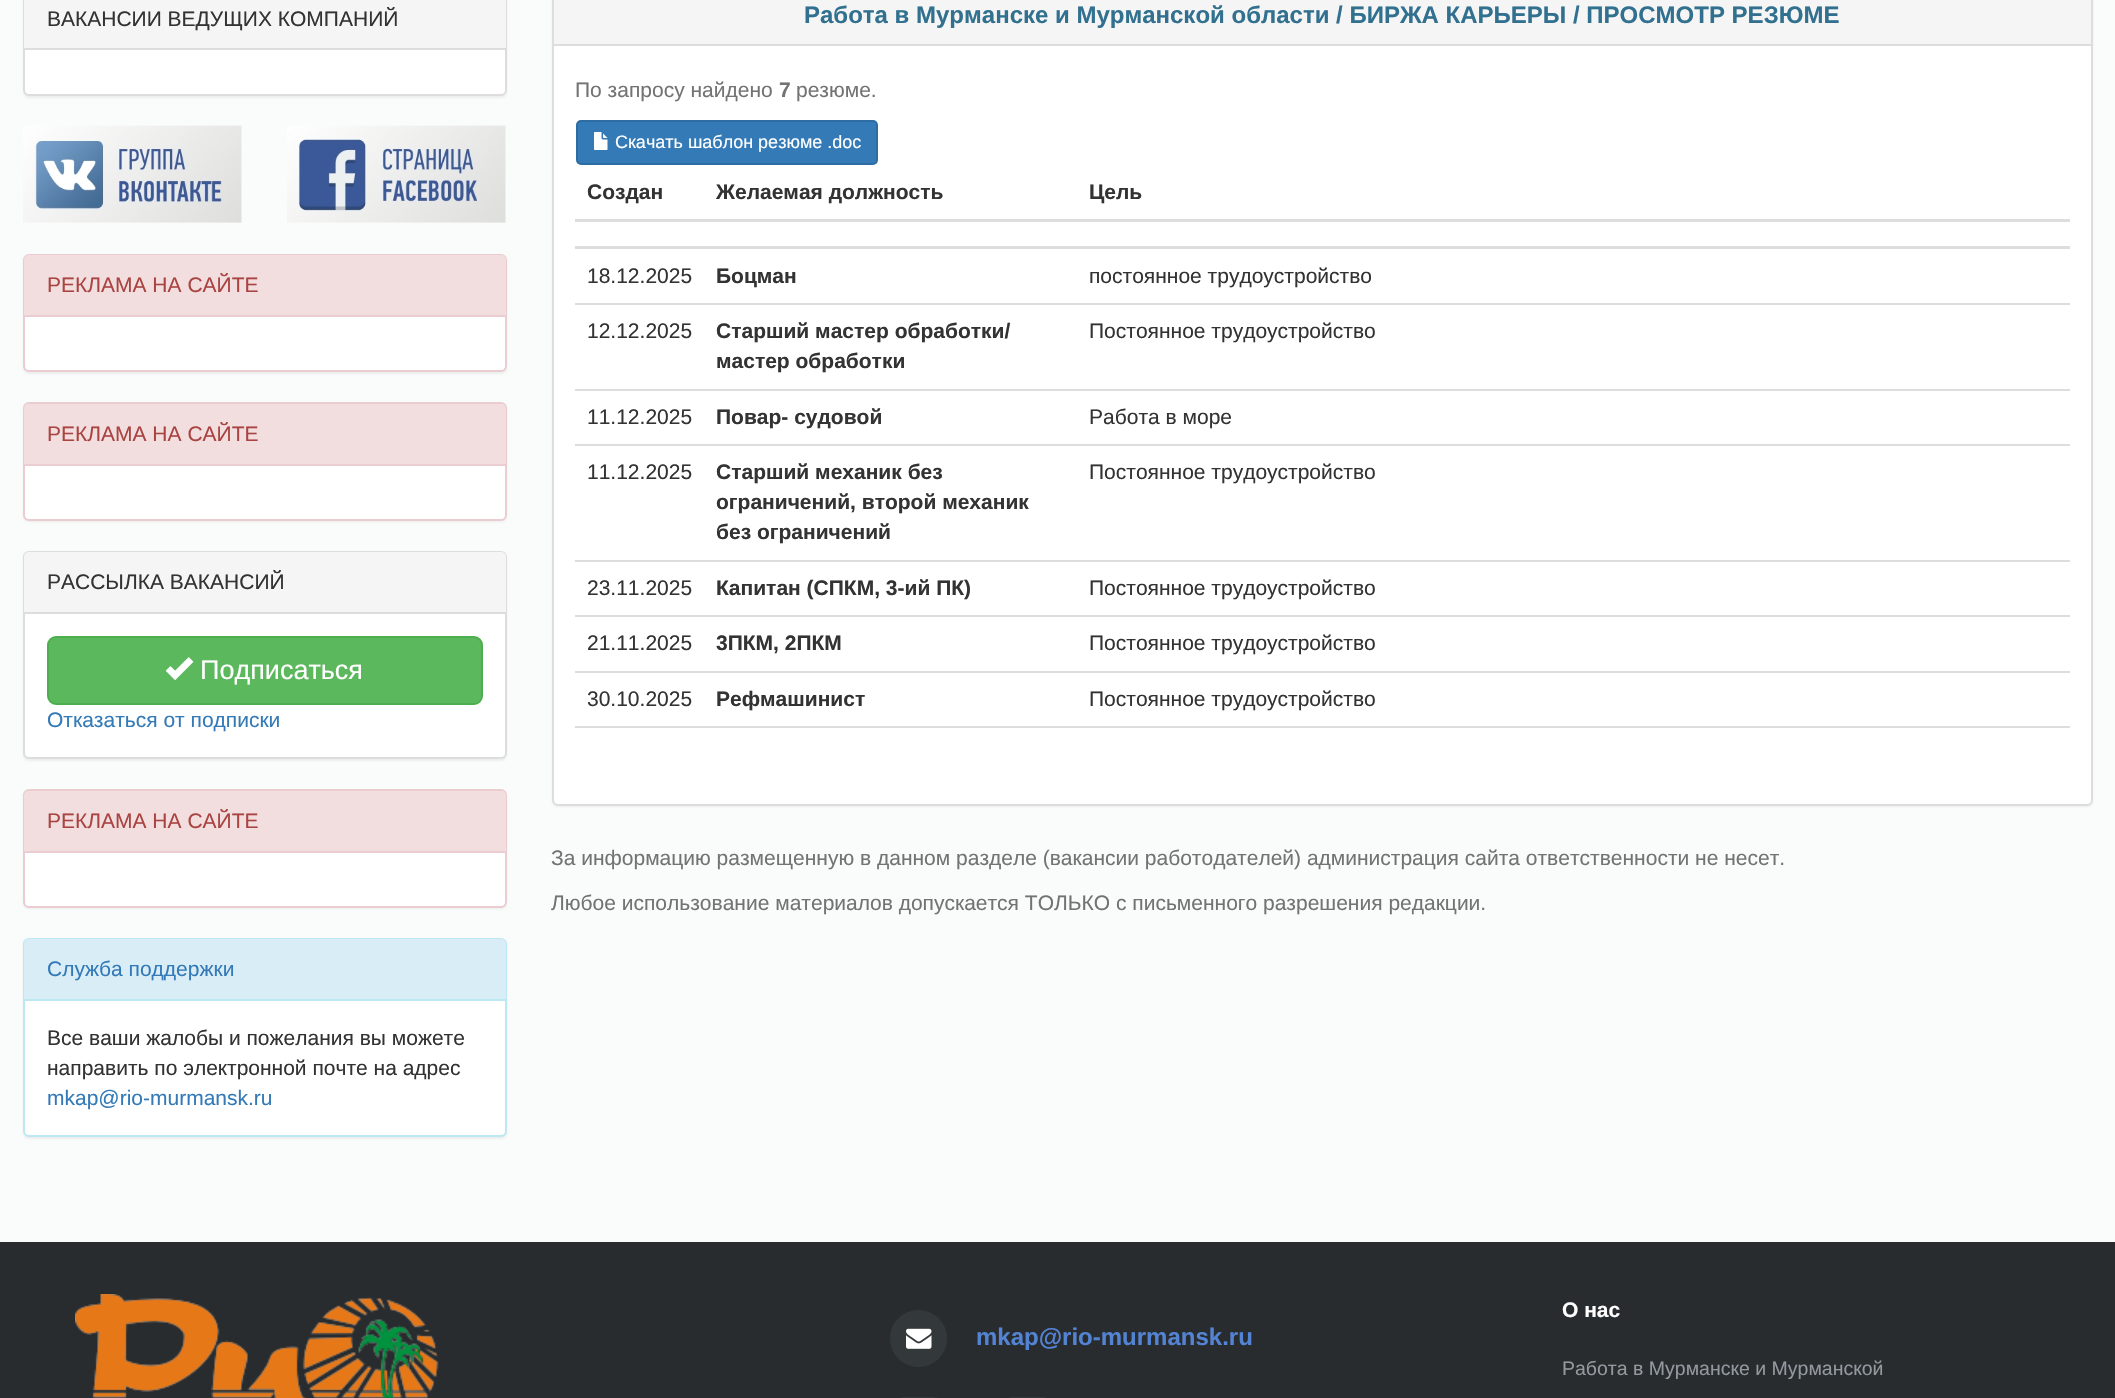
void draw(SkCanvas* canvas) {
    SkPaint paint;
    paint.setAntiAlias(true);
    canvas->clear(0xFFFAFCFC);
    paint.setColor(0x0D000000);
    paint.setMaskFilter(SkMaskFilter::MakeBlur(kNormal_SkBlurStyle, 1));
    canvas->drawRoundRect(SkRect::MakeXYWH(23, -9, 484, 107), 6, 6, paint);
    paint.setMaskFilter(nullptr);
    paint.setColor(0xFFFFFFFF);
    canvas->drawRoundRect(SkRect::MakeXYWH(24, -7, 482, 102), 5, 5, paint);
    paint.setStyle(SkPaint::kStroke_Style);
    paint.setStrokeWidth(2);
    paint.setColor(0xFFDDDDDD);
    canvas->drawRoundRect(SkRect::MakeXYWH(24, -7, 482, 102), 5, 5, paint);
    paint.setStyle(SkPaint::kFill_Style);
    paint.setColor(0xFFF5F5F5);
    canvas->drawRect(SkRect::MakeXYWH(24, 0, 482, 48), paint);
    paint.setColor(0xFFDDDDDD);
    canvas->drawRect(SkRect::MakeXYWH(24, 48, 482, 2), paint);
    SkFont font1(fontMgr->matchFamilyStyle("Liberation Sans", SkFontStyle::Normal()), 21);
    font1.setSubpixel(true);
    paint.setColor(0xFF333333);
    canvas->drawString("ВАКАНСИИ ВЕДУЩИХ КОМПАНИЙ", 47, 26, font1, paint);
    canvas->drawImageRect(SkImages::DeferredFromEncodedData(SkData::MakeFromFileName("img1.png")), SkRect::MakeXYWH(23, 125, 219, 98), SkSamplingOptions());
    canvas->drawImageRect(SkImages::DeferredFromEncodedData(SkData::MakeFromFileName("img2.png")), SkRect::MakeXYWH(287, 125, 219, 98), SkSamplingOptions());
    paint.setColor(0x0D000000);
    paint.setMaskFilter(SkMaskFilter::MakeBlur(kNormal_SkBlurStyle, 1));
    canvas->drawRoundRect(SkRect::MakeXYWH(23, 255, 484, 119), 6, 6, paint);
    paint.setMaskFilter(nullptr);
    paint.setColor(0xFFFFFFFF);
    canvas->drawRoundRect(SkRect::MakeXYWH(24, 255, 482, 116), 5, 5, paint);
    paint.setStyle(SkPaint::kStroke_Style);
    paint.setColor(0xFFEBCCD1);
    canvas->drawRoundRect(SkRect::MakeXYWH(24, 255, 482, 116), 5, 5, paint);
    paint.setStyle(SkPaint::kFill_Style);
    paint.setColor(0xFFF2DEDE);
    canvas->drawPath(SkPathBuilder().moveTo(29, 255).lineTo(501, 255).cubicTo(504, 255, 506, 257, 506, 260).lineTo(506, 317).lineTo(24, 317).lineTo(24, 260).cubicTo(24, 257, 26, 255, 29, 255).close().detach(), paint);
    paint.setColor(0xFFEBCCD1);
    canvas->drawRect(SkRect::MakeXYWH(24, 315, 482, 2), paint);
    paint.setColor(0xFFA94442);
    canvas->drawString("РЕКЛАМА НА САЙТЕ", 47, 292, font1, paint);
    paint.setColor(0x0D000000);
    paint.setMaskFilter(SkMaskFilter::MakeBlur(kNormal_SkBlurStyle, 1));
    canvas->drawRoundRect(SkRect::MakeXYWH(23, 404, 484, 118), 6, 6, paint);
    paint.setMaskFilter(nullptr);
    paint.setColor(0xFFFFFFFF);
    canvas->drawRoundRect(SkRect::MakeXYWH(24, 403, 482, 117), 5, 5, paint);
    paint.setStyle(SkPaint::kStroke_Style);
    paint.setColor(0xFFEBCCD1);
    canvas->drawRoundRect(SkRect::MakeXYWH(24, 403, 482, 117), 5, 5, paint);
    paint.setStyle(SkPaint::kFill_Style);
    paint.setColor(0xFFF2DEDE);
    canvas->drawPath(SkPathBuilder().moveTo(29, 404).lineTo(501, 404).cubicTo(504, 404, 506, 406, 506, 409).lineTo(506, 465).lineTo(24, 465).lineTo(24, 409).cubicTo(24, 406, 26, 404, 29, 404).close().detach(), paint);
    paint.setColor(0xFFEBCCD1);
    canvas->drawRect(SkRect::MakeXYWH(24, 464, 482, 2), paint);
    paint.setColor(0xFFA94442);
    canvas->drawString("РЕКЛАМА НА САЙТЕ", 47, 441, font1, paint);
    paint.setColor(0x0D000000);
    paint.setMaskFilter(SkMaskFilter::MakeBlur(kNormal_SkBlurStyle, 1));
    canvas->drawRoundRect(SkRect::MakeXYWH(23, 552, 484, 209), 6, 6, paint);
    paint.setMaskFilter(nullptr);
    paint.setColor(0xFFFFFFFF);
    canvas->drawRoundRect(SkRect::MakeXYWH(24, 552, 482, 206), 5, 5, paint);
    paint.setStyle(SkPaint::kStroke_Style);
    paint.setColor(0xFFDDDDDD);
    canvas->drawRoundRect(SkRect::MakeXYWH(24, 552, 482, 206), 5, 5, paint);
    paint.setStyle(SkPaint::kFill_Style);
    paint.setColor(0xFFF5F5F5);
    canvas->drawPath(SkPathBuilder().moveTo(29, 552).lineTo(501, 552).cubicTo(504, 552, 506, 554, 506, 557).lineTo(506, 614).lineTo(24, 614).lineTo(24, 557).cubicTo(24, 554, 26, 552, 29, 552).close().detach(), paint);
    paint.setColor(0xFFDDDDDD);
    canvas->drawRect(SkRect::MakeXYWH(24, 612, 482, 2), paint);
    paint.setColor(0xFF333333);
    canvas->drawString("РАССЫЛКА ВАКАНСИЙ", 47, 589, font1, paint);
    paint.setColor(0xFF5CB85C);
    canvas->drawRoundRect(SkRect::MakeXYWH(48, 637, 434, 67), 8, 8, paint);
    paint.setStyle(SkPaint::kStroke_Style);
    paint.setColor(0xFF4CAE4C);
    canvas->drawRoundRect(SkRect::MakeXYWH(48, 637, 434, 67), 8, 8, paint);
    canvas->drawImageRect(SkImages::DeferredFromEncodedData(SkData::MakeFromFileName("img3.png")), SkRect::MakeXYWH(165, 657, 29, 23), SkSamplingOptions());
    SkFont font2(fontMgr->matchFamilyStyle("Liberation Sans", SkFontStyle::Normal()), 27);
    font2.setSubpixel(true);
    paint.setStyle(SkPaint::kFill_Style);
    paint.setColor(0xFFFFFFFF);
    canvas->drawString("Подписаться", 200, 679, font2, paint);
    paint.setColor(0xFF337AB7);
    canvas->drawString("Отказаться от подписки", 47, 727, font1, paint);
    paint.setColor(0x0D000000);
    paint.setMaskFilter(SkMaskFilter::MakeBlur(kNormal_SkBlurStyle, 1));
    canvas->drawRoundRect(SkRect::MakeXYWH(23, 791, 484, 118), 6, 6, paint);
    paint.setMaskFilter(nullptr);
    paint.setColor(0xFFFFFFFF);
    canvas->drawRoundRect(SkRect::MakeXYWH(24, 790, 482, 117), 5, 5, paint);
    paint.setStyle(SkPaint::kStroke_Style);
    paint.setColor(0xFFEBCCD1);
    canvas->drawRoundRect(SkRect::MakeXYWH(24, 790, 482, 117), 5, 5, paint);
    paint.setStyle(SkPaint::kFill_Style);
    paint.setColor(0xFFF2DEDE);
    canvas->drawPath(SkPathBuilder().moveTo(29, 791).lineTo(501, 791).cubicTo(504, 791, 506, 793, 506, 796).lineTo(506, 852).lineTo(24, 852).lineTo(24, 796).cubicTo(24, 793, 26, 791, 29, 791).close().detach(), paint);
    paint.setColor(0xFFEBCCD1);
    canvas->drawRect(SkRect::MakeXYWH(24, 851, 482, 2), paint);
    paint.setColor(0xFFA94442);
    canvas->drawString("РЕКЛАМА НА САЙТЕ", 47, 828, font1, paint);
    paint.setColor(0x0D000000);
    paint.setMaskFilter(SkMaskFilter::MakeBlur(kNormal_SkBlurStyle, 1));
    canvas->drawRoundRect(SkRect::MakeXYWH(23, 939, 484, 200), 6, 6, paint);
    paint.setMaskFilter(nullptr);
    paint.setColor(0xFFFFFFFF);
    canvas->drawRoundRect(SkRect::MakeXYWH(24, 939, 482, 197), 5, 5, paint);
    paint.setStyle(SkPaint::kStroke_Style);
    paint.setColor(0xFFBCE8F1);
    canvas->drawRoundRect(SkRect::MakeXYWH(24, 939, 482, 197), 5, 5, paint);
    paint.setStyle(SkPaint::kFill_Style);
    paint.setColor(0xFFD9EDF7);
    canvas->drawPath(SkPathBuilder().moveTo(29, 939).lineTo(501, 939).cubicTo(504, 939, 506, 941, 506, 944).lineTo(506, 1001).lineTo(24, 1001).lineTo(24, 944).cubicTo(24, 941, 26, 939, 29, 939).close().detach(), paint);
    paint.setColor(0xFFBCE8F1);
    canvas->drawRect(SkRect::MakeXYWH(24, 999, 482, 2), paint);
    paint.setColor(0xFF337AB7);
    canvas->drawString("Служба поддержки", 47, 976, font1, paint);
    paint.setColor(0xFF333333);
    canvas->drawString("Все ваши жалобы и пожелания вы можете", 47, 1045, font1, paint);
    canvas->drawString("направить по электронной почте на адрес", 47, 1075, font1, paint);
    paint.setColor(0xFF337AB7);
    canvas->drawString("mkap@rio-murmansk.ru", 47, 1105, font1, paint);
    paint.setColor(0x0D000000);
    paint.setMaskFilter(SkMaskFilter::MakeBlur(kNormal_SkBlurStyle, 1));
    canvas->drawRoundRect(SkRect::MakeXYWH(552, -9, 1541, 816), 6, 6, paint);
    paint.setMaskFilter(nullptr);
    paint.setColor(0xFFFFFFFF);
    canvas->drawRoundRect(SkRect::MakeXYWH(553, -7, 1539, 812), 5, 5, paint);
    paint.setStyle(SkPaint::kStroke_Style);
    paint.setColor(0xFFDDDDDD);
    canvas->drawRoundRect(SkRect::MakeXYWH(553, -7, 1539, 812), 5, 5, paint);
    paint.setStyle(SkPaint::kFill_Style);
    paint.setColor(0xFFF5F5F5);
    canvas->drawRect(SkRect::MakeXYWH(554, 0, 1537, 44), paint);
    paint.setColor(0xFFDDDDDD);
    canvas->drawRect(SkRect::MakeXYWH(554, 44, 1537, 2), paint);
    SkFont font3(fontMgr->matchFamilyStyle("Liberation Sans", SkFontStyle::Bold()), 24);
    font3.setSubpixel(true);
    paint.setColor(0xFF31708F);
    canvas->drawString("Работа в Мурманске и Мурманской области / БИРЖА КАРЬЕРЫ / ПРОСМОТР РЕЗЮМЕ", 804, 23, font3, paint);
    paint.setColor(0xFF737373);
    canvas->drawString("По запросу найдено", 575, 97, font1, paint);
    SkFont font4(fontMgr->matchFamilyStyle("Liberation Sans", SkFontStyle::Bold()), 21);
    font4.setSubpixel(true);
    canvas->drawString("7", 779, 97, font4, paint);
    canvas->drawString("резюме.", 796, 97, font1, paint);
    paint.setColor(0xFF337AB7);
    canvas->drawRoundRect(SkRect::MakeXYWH(577, 121, 300, 43), 4, 4, paint);
    paint.setStyle(SkPaint::kStroke_Style);
    paint.setColor(0xFF2E6DA4);
    canvas->drawRoundRect(SkRect::MakeXYWH(577, 121, 300, 43), 4, 4, paint);
    canvas->drawImageRect(SkImages::DeferredFromEncodedData(SkData::MakeFromFileName("img4.png")), SkRect::MakeXYWH(594, 132, 14, 18), SkSamplingOptions());
    SkFont font5(fontMgr->matchFamilyStyle("Liberation Sans", SkFontStyle::Normal()), 18);
    font5.setSubpixel(true);
    paint.setStyle(SkPaint::kFill_Style);
    paint.setColor(0xFFFFFFFF);
    canvas->drawString("Скачать шаблон резюме .doc", 615, 148, font5, paint);
    paint.setColor(0xFF333333);
    canvas->drawString("Создан", 587, 199, font4, paint);
    canvas->drawString("Желаемая должность", 716, 199, font4, paint);
    paint.setColor(0xFFDDDDDD);
    canvas->drawRect(SkRect::MakeXYWH(575, 219, 1495, 3), paint);
    paint.setColor(0xFF333333);
    canvas->drawString("Цель", 1089, 199, font4, paint);
    paint.setColor(0xFFDDDDDD);
    canvas->drawRect(SkRect::MakeXYWH(575, 246, 1495, 3), paint);
    paint.setColor(0xFF333333);
    canvas->drawString("18.12.2025", 587, 283, font1, paint);
    canvas->drawString("Боцман", 716, 283, font4, paint);
    canvas->drawString("постоянное трудоустройство", 1089, 283, font1, paint);
    canvas->drawString("12.12.2025", 587, 338, font1, paint);
    canvas->drawString("Старший мастер обработки/", 716, 338, font4, paint);
    canvas->drawString("мастер обработки", 716, 368, font4, paint);
    paint.setColor(0xFFDDDDDD);
    canvas->drawRect(SkRect::MakeXYWH(575, 303, 1495, 2), paint);
    paint.setColor(0xFF333333);
    canvas->drawString("Постоянное трудоустройство", 1089, 338, font1, paint);
    canvas->drawString("11.12.2025", 587, 424, font1, paint);
    canvas->drawString("Повар- судовой", 716, 424, font4, paint);
    paint.setColor(0xFFDDDDDD);
    canvas->drawRect(SkRect::MakeXYWH(575, 389, 1495, 2), paint);
    paint.setColor(0xFF333333);
    canvas->drawString("Работа в море", 1089, 424, font1, paint);
    canvas->drawString("11.12.2025", 587, 479, font1, paint);
    canvas->drawString("Старший механик без", 716, 479, font4, paint);
    canvas->drawString("ограничений, второй механик", 716, 509, font4, paint);
    canvas->drawString("без ограничений", 716, 539, font4, paint);
    paint.setColor(0xFFDDDDDD);
    canvas->drawRect(SkRect::MakeXYWH(575, 444, 1495, 2), paint);
    paint.setColor(0xFF333333);
    canvas->drawString("Постоянное трудоустройство", 1089, 479, font1, paint);
    canvas->drawString("23.11.2025", 587, 595, font1, paint);
    canvas->drawString("Капитан (СПКМ, 3-ий ПК)", 716, 595, font4, paint);
    paint.setColor(0xFFDDDDDD);
    canvas->drawRect(SkRect::MakeXYWH(575, 560, 1495, 2), paint);
    paint.setColor(0xFF333333);
    canvas->drawString("Постоянное трудоустройство", 1089, 595, font1, paint);
    canvas->drawString("21.11.2025", 587, 650, font1, paint);
    canvas->drawString("3ПКМ, 2ПКМ", 716, 650, font4, paint);
    paint.setColor(0xFFDDDDDD);
    canvas->drawRect(SkRect::MakeXYWH(575, 615, 1495, 2), paint);
    paint.setColor(0xFF333333);
    canvas->drawString("Постоянное трудоустройство", 1089, 650, font1, paint);
    canvas->drawString("30.10.2025", 587, 706, font1, paint);
    canvas->drawString("Рефмашинист", 716, 706, font4, paint);
    paint.setColor(0xFFDDDDDD);
    canvas->drawRect(SkRect::MakeXYWH(575, 671, 1495, 2), paint);
    paint.setColor(0xFF333333);
    canvas->drawString("Постоянное трудоустройство", 1089, 706, font1, paint);
    paint.setColor(0xFFDDDDDD);
    canvas->drawRect(SkRect::MakeXYWH(575, 726, 1495, 2), paint);
    paint.setColor(0xFF737373);
    canvas->drawString("За информацию размещенную в данном разделе (вакансии работодателей) администрация сайта ответственности не несет.", 551, 865, font1, paint);
    canvas->drawString("Любое использование материалов допускается ТОЛЬКО с письменного разрешения редакции.", 551, 910, font1, paint);
    paint.setColor(0xFF292C2F);
    canvas->drawRect(SkRect::MakeXYWH(0, 1242, 2115, 156), paint);
    canvas->drawImageRect(SkImages::DeferredFromEncodedData(SkData::MakeFromFileName("img5.png")), SkRect::MakeXYWH(75, 1294, 364, 104), SkSamplingOptions());
    paint.setColor(0xFF33383B);
    canvas->drawCircle(918.5f, 1338.5f, 28.5f, paint);
    canvas->drawImageRect(SkImages::DeferredFromEncodedData(SkData::MakeFromFileName("img6.png")), SkRect::MakeXYWH(906, 1328, 26, 21), SkSamplingOptions());
    paint.setColor(0xFF5383D3);
    canvas->drawString("mkap@rio-murmansk.ru", 976, 1345, font3, paint);
    paint.setColor(0xFF33383B);
    canvas->drawRoundRect(SkRect::MakeXYWH(890, 1397, 57, 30), 28.5f, 28.5f, paint);
    canvas->drawRoundRect(SkRect::MakeXYWH(999, 1397, 57, 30), 28.5f, 28.5f, paint);
    paint.setColor(0xFFFFFFFF);
    canvas->drawString("О нас", 1562, 1317, font4, paint);
    SkFont font6(fontMgr->matchFamilyStyle("Liberation Sans", SkFontStyle::Normal()), 19.5f);
    font6.setSubpixel(true);
    paint.setColor(0xFF92999F);
    canvas->drawString("Работа в Мурманске и Мурманской", 1562, 1375, font6, paint);
}
